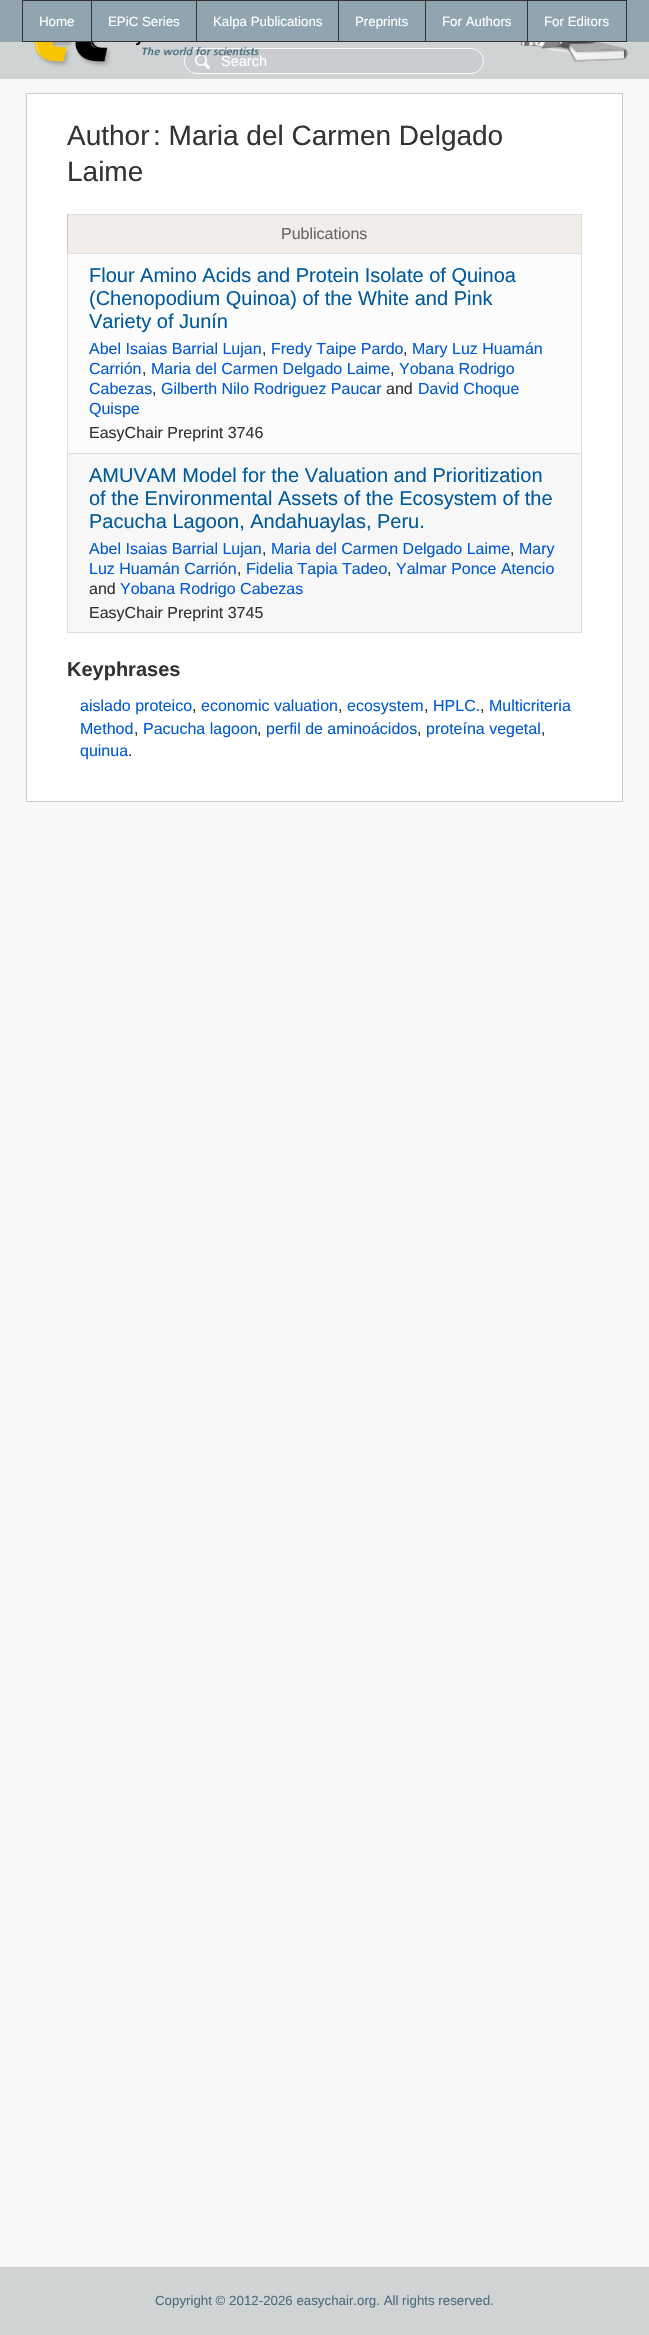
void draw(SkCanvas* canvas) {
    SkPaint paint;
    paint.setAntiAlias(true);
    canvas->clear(0xFF90A5B0);
    paint.setColor(0xFF333333);
    canvas->drawRect(SkRect::MakeXYWH(527, 0, 100, 1), paint);
    canvas->drawRect(SkRect::MakeXYWH(626, 0, 1, 42), paint);
    canvas->drawRect(SkRect::MakeXYWH(527, 41, 100, 1), paint);
    canvas->drawRect(SkRect::MakeXYWH(527, 0, 1, 42), paint);
    canvas->drawRect(SkRect::MakeXYWH(425, 0, 103, 1), paint);
    canvas->drawRect(SkRect::MakeXYWH(425, 41, 103, 1), paint);
    canvas->drawRect(SkRect::MakeXYWH(425, 0, 1, 42), paint);
    canvas->drawRect(SkRect::MakeXYWH(338, 0, 88, 1), paint);
    canvas->drawRect(SkRect::MakeXYWH(338, 41, 88, 1), paint);
    canvas->drawRect(SkRect::MakeXYWH(338, 0, 1, 42), paint);
    canvas->drawRect(SkRect::MakeXYWH(196, 0, 143, 1), paint);
    canvas->drawRect(SkRect::MakeXYWH(196, 41, 143, 1), paint);
    canvas->drawRect(SkRect::MakeXYWH(196, 0, 1, 42), paint);
    canvas->drawRect(SkRect::MakeXYWH(91, 0, 106, 1), paint);
    canvas->drawRect(SkRect::MakeXYWH(91, 41, 106, 1), paint);
    canvas->drawRect(SkRect::MakeXYWH(91, 0, 1, 42), paint);
    canvas->drawRect(SkRect::MakeXYWH(22, 0, 70, 1), paint);
    canvas->drawRect(SkRect::MakeXYWH(22, 41, 70, 1), paint);
    canvas->drawRect(SkRect::MakeXYWH(22, 0, 1, 42), paint);
    SkFont font1(fontMgr->matchFamilyStyle("Liberation Sans", SkFontStyle::Normal()), 13.3f);
    font1.setSubpixel(true);
    paint.setColor(0xFFFFFFFF);
    canvas->drawString("Home", 39, 26, font1, paint);
    canvas->drawString("EPiC Series", 108, 26, font1, paint);
    canvas->drawString("Kalpa Publications", 213, 26, font1, paint);
    canvas->drawString("Preprints", 355, 26, font1, paint);
    canvas->drawString("For Authors", 442, 26, font1, paint);
    canvas->drawString("For Editors", 544, 26, font1, paint);
    paint.setColor(0xFFD0D3D4);
    canvas->drawRect(SkRect::MakeXYWH(0, 43, 648, 35), paint);
    canvas->drawRect(SkRect::MakeXYWH(0, 42, 649, 1), paint);
    paint.setColor(0xFFC9CDD0);
    canvas->drawRoundRect(SkRect::MakeXYWH(184, 48, 300, 26), 13, 13, paint);
    canvas->drawImageRect(SkImages::DeferredFromEncodedData(SkData::MakeFromFileName("img3.png")), SkRect::MakeXYWH(195, 54, 15, 15), SkSamplingOptions());
    paint.setStyle(SkPaint::kStroke_Style);
    paint.setStrokeWidth(1);
    paint.setColor(0xFFFFFFFF);
    canvas->drawRoundRect(SkRect::MakeXYWH(184.5f, 48.5f, 299, 25), 12.5f, 12.5f, paint);
    SkFont font2(fontMgr->matchFamilyStyle("Liberation Sans", SkFontStyle::Normal()), 14.5f);
    font2.setSubpixel(true);
    paint.setStyle(SkPaint::kFill_Style);
    canvas->drawString("Search", 221, 66, font2, paint);
    canvas->drawImageRect(SkImages::DeferredFromEncodedData(SkData::MakeFromFileName("img1.png")), SkRect::MakeXYWH(34, 42, 225, 25), SkSamplingOptions());
    canvas->drawImageRect(SkImages::DeferredFromEncodedData(SkData::MakeFromFileName("img2.png")), SkRect::MakeXYWH(521, 42, 107, 20), SkSamplingOptions());
    paint.setColor(0xFFD0D3D4);
    canvas->drawRect(SkRect::MakeXYWH(648, 42, 1, 37), paint);
    canvas->drawRect(SkRect::MakeXYWH(0, 78, 649, 1), paint);
    paint.setColor(0xFFF8F8F8);
    canvas->drawRect(SkRect::MakeXYWH(0, 79, 649, 2188), paint);
    paint.setColor(0xFFFFFFFF);
    canvas->drawRect(SkRect::MakeXYWH(26.5f, 93.5f, 596, 708), paint);
    paint.setStyle(SkPaint::kStroke_Style);
    paint.setColor(0xFFCCCCCC);
    canvas->drawRect(SkRect::MakeXYWH(26.5f, 93.5f, 596, 708), paint);
    SkFont font3(fontMgr->matchFamilyStyle("Liberation Sans", SkFontStyle::Normal()), 28);
    font3.setSubpixel(true);
    paint.setStyle(SkPaint::kFill_Style);
    paint.setColor(0xFF333333);
    canvas->drawString("Author", 67, 145, font3, paint);
    canvas->drawString(": Maria del Carmen Delgado", 153, 145, font3, paint);
    canvas->drawString("Laime", 67, 181, font3, paint);
    paint.setColor(0xFFDEDEDE);
    canvas->drawRect(SkRect::MakeXYWH(67, 214, 515, 1), paint);
    canvas->drawRect(SkRect::MakeXYWH(581, 214, 1, 419), paint);
    canvas->drawRect(SkRect::MakeXYWH(67, 632, 515, 1), paint);
    canvas->drawRect(SkRect::MakeXYWH(67, 254, 1, 379), paint);
    paint.setColor(0xFFF2EDE9);
    canvas->drawRect(SkRect::MakeXYWH(68, 215, 513, 38), paint);
    paint.setColor(0xFFDEDEDE);
    canvas->drawRect(SkRect::MakeXYWH(67, 253, 515, 1), paint);
    paint.setColor(0xFFCCCCCC);
    canvas->drawRect(SkRect::MakeXYWH(67, 214, 1, 40), paint);
    SkFont font4(fontMgr->matchFamilyStyle("Liberation Sans", SkFontStyle::Normal()), 16);
    font4.setSubpixel(true);
    paint.setColor(0xFF666666);
    canvas->drawString("Publications", 281, 239, font4, paint);
    paint.setColor(0xFFFCFCFC);
    canvas->drawRect(SkRect::MakeXYWH(68, 254, 513, 199), paint);
    paint.setColor(0xFFDEDEDE);
    canvas->drawRect(SkRect::MakeXYWH(67, 453, 515, 1), paint);
    SkFont font5(fontMgr->matchFamilyStyle("Liberation Sans", SkFontStyle::Normal()), 20);
    font5.setSubpixel(true);
    paint.setColor(0xFF005A9F);
    canvas->drawString("Flour Amino Acids and Protein Isolate of Quinoa", 89, 282, font5, paint);
    canvas->drawString("(Chenopodium Quinoa) of the White and Pink", 89, 305, font5, paint);
    canvas->drawString("Variety of Junín", 89, 328, font5, paint);
    paint.setColor(0xFF0059DB);
    canvas->drawString("Abel Isaias Barrial Lujan", 89, 354, font4, paint);
    paint.setColor(0xFF333333);
    canvas->drawString(",", 262, 354, font4, paint);
    paint.setColor(0xFF0059DB);
    canvas->drawString("Fredy Taipe Pardo", 271, 354, font4, paint);
    paint.setColor(0xFF333333);
    canvas->drawString(",", 403, 354, font4, paint);
    paint.setColor(0xFF0059DB);
    canvas->drawString("Mary Luz Huamán", 412, 354, font4, paint);
    canvas->drawString("Carrión", 89, 374, font4, paint);
    paint.setColor(0xFF333333);
    canvas->drawString(",", 142, 374, font4, paint);
    paint.setColor(0xFF0059DB);
    canvas->drawString("Maria del Carmen Delgado Laime", 151, 374, font4, paint);
    paint.setColor(0xFF333333);
    canvas->drawString(",", 390, 374, font4, paint);
    paint.setColor(0xFF0059DB);
    canvas->drawString("Yobana Rodrigo", 399, 374, font4, paint);
    canvas->drawString("Cabezas", 89, 394, font4, paint);
    paint.setColor(0xFF333333);
    canvas->drawString(",", 152, 394, font4, paint);
    paint.setColor(0xFF0059DB);
    canvas->drawString("Gilberth Nilo Rodriguez Paucar", 161, 394, font4, paint);
    paint.setColor(0xFF333333);
    canvas->drawString("and", 386, 394, font4, paint);
    paint.setColor(0xFF0059DB);
    canvas->drawString("David Choque", 418, 394, font4, paint);
    canvas->drawString("Quispe", 89, 414, font4, paint);
    paint.setColor(0xFF333333);
    canvas->drawString("EasyChair Preprint 3746", 89, 438, font4, paint);
    paint.setColor(0xFFF7F7F7);
    canvas->drawRect(SkRect::MakeXYWH(68, 454, 513, 178), paint);
    paint.setColor(0xFF005A9F);
    canvas->drawString("AMUVAM Model for the Valuation and Prioritization", 89, 482, font5, paint);
    canvas->drawString("of the Environmental Assets of the Ecosystem of the", 89, 505, font5, paint);
    canvas->drawString("Pacucha Lagoon, Andahuaylas, Peru.", 89, 528, font5, paint);
    paint.setColor(0xFF0059DB);
    canvas->drawString("Abel Isaias Barrial Lujan", 89, 554, font4, paint);
    paint.setColor(0xFF333333);
    canvas->drawString(",", 262, 554, font4, paint);
    paint.setColor(0xFF0059DB);
    canvas->drawString("Maria del Carmen Delgado Laime", 271, 554, font4, paint);
    paint.setColor(0xFF333333);
    canvas->drawString(",", 510, 554, font4, paint);
    paint.setColor(0xFF0059DB);
    canvas->drawString("Mary", 519, 554, font4, paint);
    canvas->drawString("Luz Huamán Carrión", 89, 574, font4, paint);
    paint.setColor(0xFF333333);
    canvas->drawString(",", 237, 574, font4, paint);
    paint.setColor(0xFF0059DB);
    canvas->drawString("Fidelia Tapia Tadeo", 246, 574, font4, paint);
    paint.setColor(0xFF333333);
    canvas->drawString(",", 387, 574, font4, paint);
    paint.setColor(0xFF0059DB);
    canvas->drawString("Yalmar Ponce Atencio", 396, 574, font4, paint);
    paint.setColor(0xFF333333);
    canvas->drawString("and", 89, 594, font4, paint);
    paint.setColor(0xFF0059DB);
    canvas->drawString("Yobana Rodrigo Cabezas", 120, 594, font4, paint);
    paint.setColor(0xFF333333);
    canvas->drawString("EasyChair Preprint 3745", 89, 618, font4, paint);
    SkFont font6(fontMgr->matchFamilyStyle("Liberation Sans", SkFontStyle::Bold()), 20);
    font6.setSubpixel(true);
    canvas->drawString("Keyphrases", 67, 676, font6, paint);
    paint.setColor(0xFF0059DB);
    canvas->drawString("aislado proteico", 80, 711, font4, paint);
    paint.setColor(0xFF333333);
    canvas->drawString(",", 192, 711, font4, paint);
    paint.setColor(0xFF0059DB);
    canvas->drawString("economic valuation", 201, 711, font4, paint);
    paint.setColor(0xFF333333);
    canvas->drawString(",", 338, 711, font4, paint);
    paint.setColor(0xFF0059DB);
    canvas->drawString("ecosystem", 347, 711, font4, paint);
    paint.setColor(0xFF333333);
    canvas->drawString(",", 424, 711, font4, paint);
    paint.setColor(0xFF0059DB);
    canvas->drawString("HPLC.", 433, 711, font4, paint);
    paint.setColor(0xFF333333);
    canvas->drawString(",", 480, 711, font4, paint);
    paint.setColor(0xFF0059DB);
    canvas->drawString("Multicriteria", 489, 711, font4, paint);
    canvas->drawString("Method", 80, 734, font4, paint);
    paint.setColor(0xFF333333);
    canvas->drawString(",", 134, 734, font4, paint);
    paint.setColor(0xFF0059DB);
    canvas->drawString("Pacucha lagoon", 143, 734, font4, paint);
    paint.setColor(0xFF333333);
    canvas->drawString(",", 257, 734, font4, paint);
    paint.setColor(0xFF0059DB);
    canvas->drawString("perfil de aminoácidos", 266, 734, font4, paint);
    paint.setColor(0xFF333333);
    canvas->drawString(",", 417, 734, font4, paint);
    paint.setColor(0xFF0059DB);
    canvas->drawString("proteína vegetal", 426, 734, font4, paint);
    paint.setColor(0xFF333333);
    canvas->drawString(",", 541, 734, font4, paint);
    paint.setColor(0xFF0059DB);
    canvas->drawString("quinua", 80, 756, font4, paint);
    paint.setColor(0xFF333333);
    canvas->drawString(".", 128, 756, font4, paint);
    paint.setColor(0xFFD0D3D4);
    canvas->drawRect(SkRect::MakeXYWH(0, 2268, 649, 67), paint);
    paint.setColor(0xFFCCCCCC);
    canvas->drawRect(SkRect::MakeXYWH(0, 2267, 649, 1), paint);
    paint.setColor(0xFF4C6C7C);
    canvas->drawString("Copyright © 2012-2026 easychair.org. All rights reserved.", 155, 2305, font1, paint);
}
